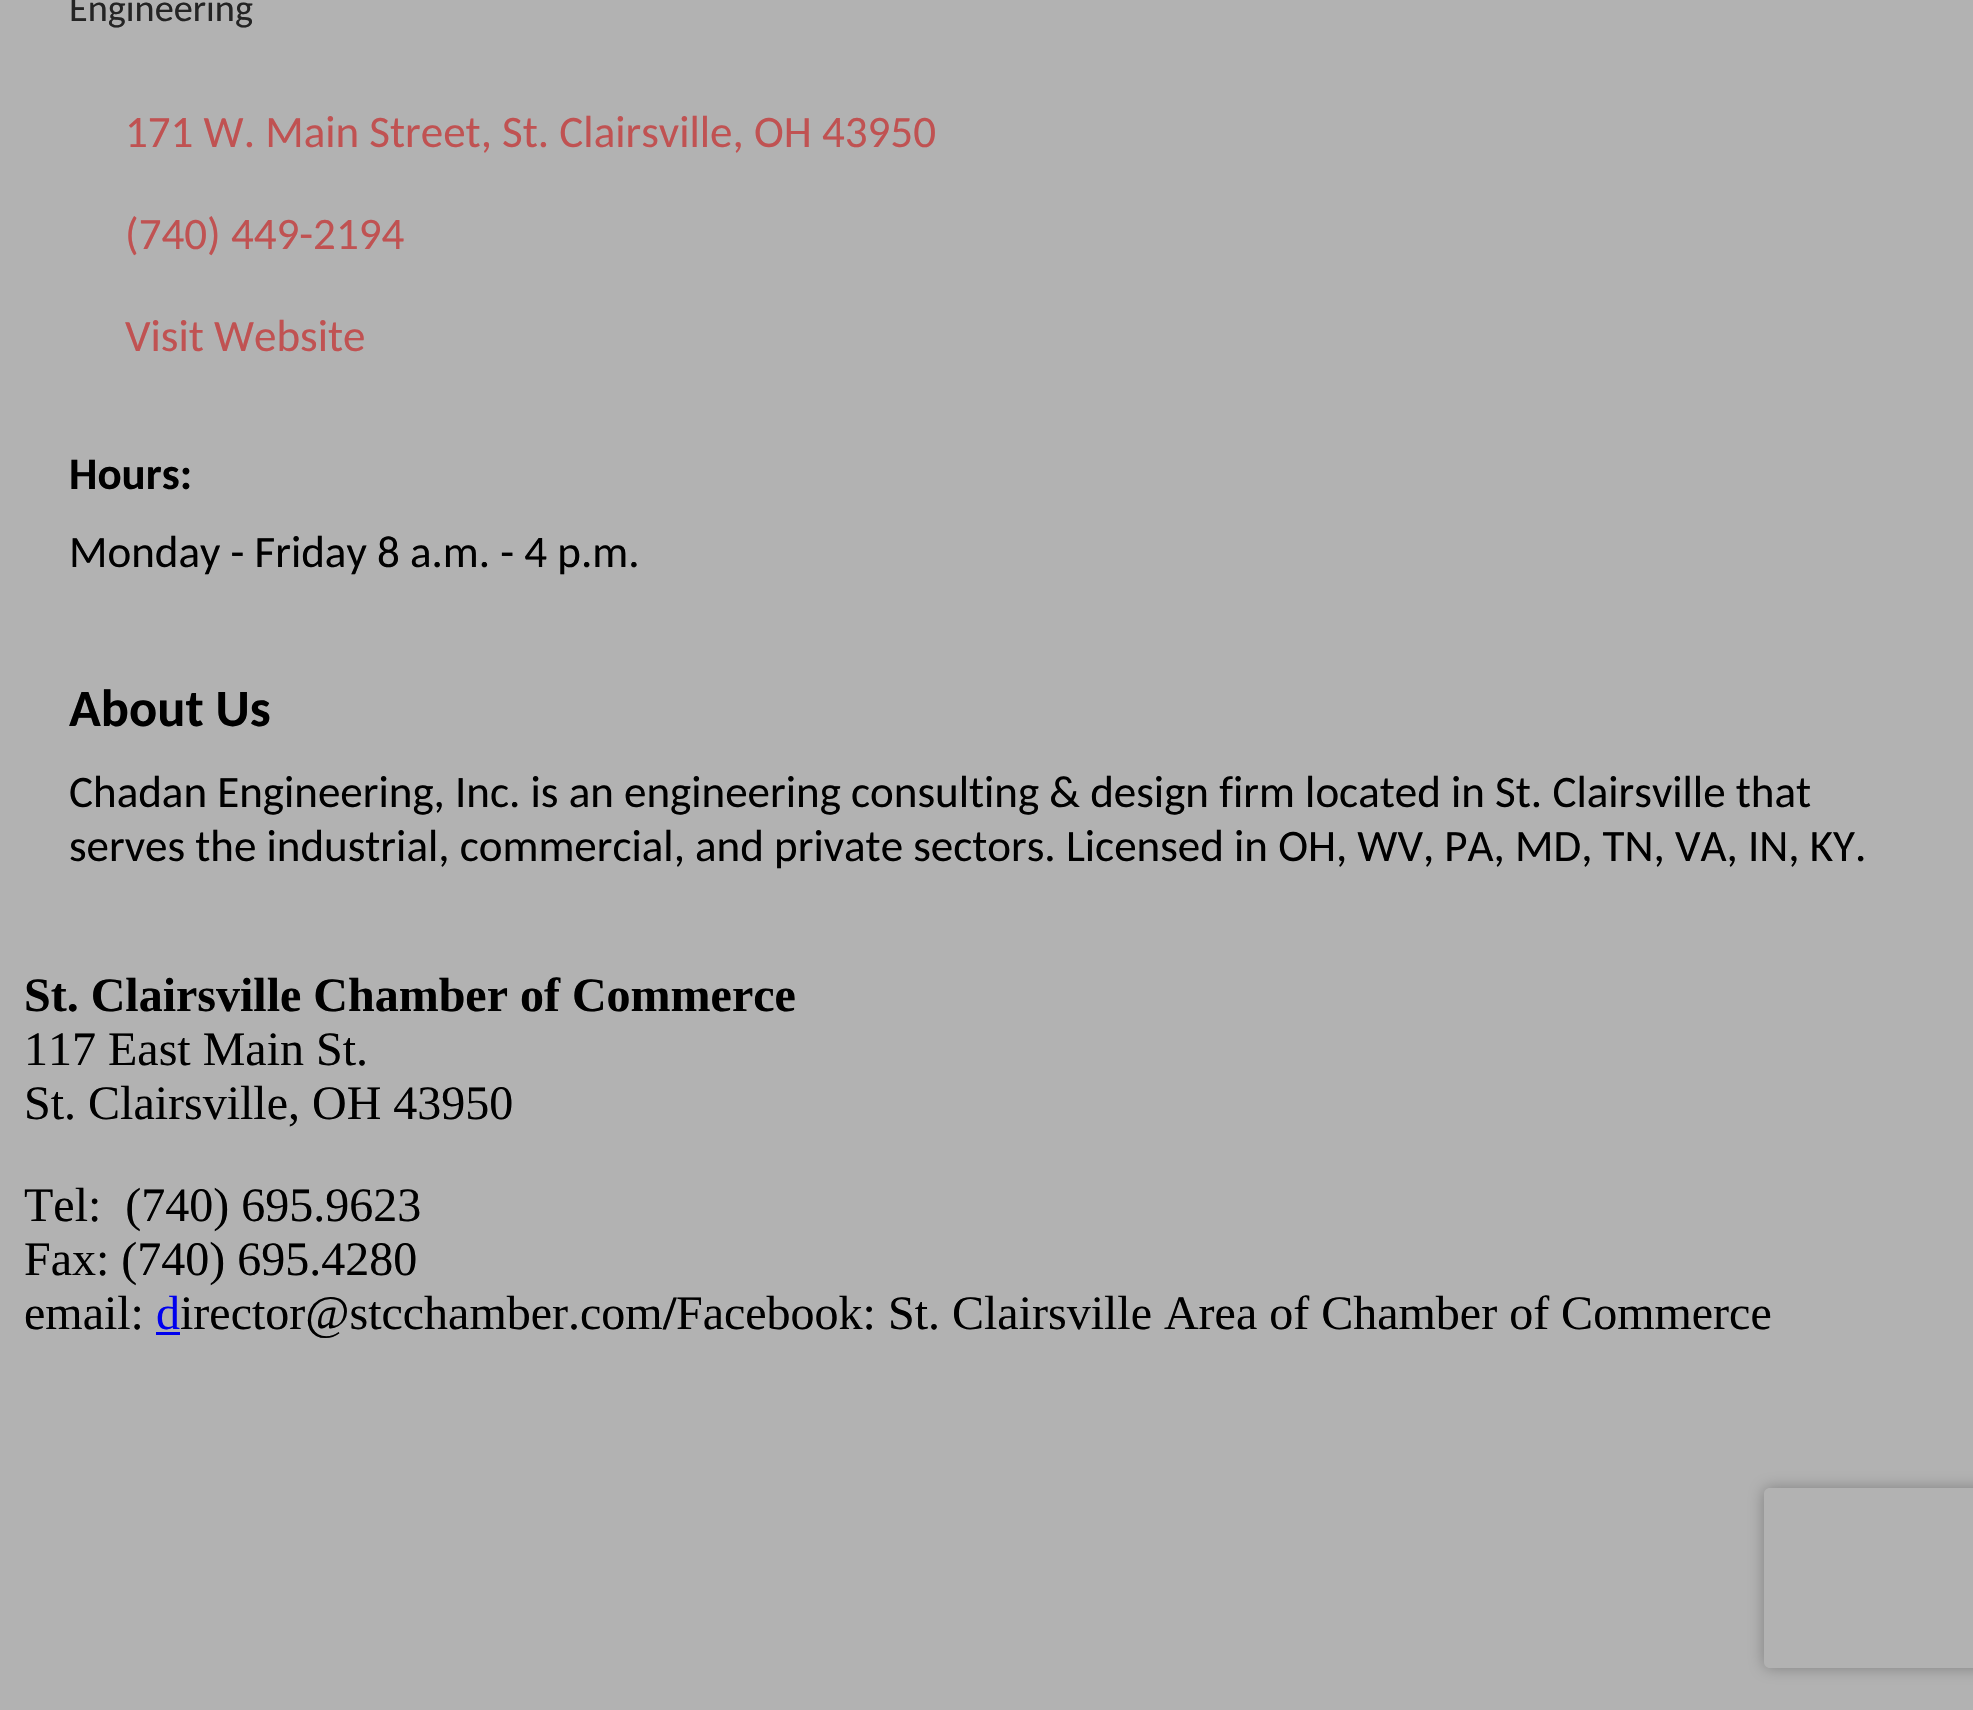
void draw(SkCanvas* canvas) {
    SkPaint paint;
    paint.setAntiAlias(true);
    canvas->clear(0xFFB2B2B2);
    SkFont font1(fontMgr->matchFamilyStyle("Carlito", SkFontStyle::Normal()), 38.25f);
    font1.setSubpixel(true);
    paint.setColor(0xFF242424);
    canvas->drawString("Engineering", 69, 21, font1, paint);
    SkFont font2(fontMgr->matchFamilyStyle("Carlito", SkFontStyle::Normal()), 45);
    font2.setSubpixel(true);
    paint.setColor(0xFFC05252);
    canvas->drawString("171 W. Main Street, St. Clairsville, OH 43950", 125, 147, font2, paint);
    canvas->drawString("(740) 449-2194", 125, 249, font2, paint);
    canvas->drawString("Visit Website", 125, 351, font2, paint);
    SkFont font3(fontMgr->matchFamilyStyle("Carlito", SkFontStyle::Bold()), 45);
    font3.setSubpixel(true);
    paint.setColor(0xFF000000);
    canvas->drawString("Hours:", 69, 489, font3, paint);
    canvas->drawString("Monday - Friday 8 a.m. - 4 p.m.", 69, 567, font2, paint);
    SkFont font4(fontMgr->matchFamilyStyle("Carlito", SkFontStyle::Bold()), 52.5f);
    font4.setSubpixel(true);
    canvas->drawString("About Us", 69, 726, font4, paint);
    canvas->drawString("Chadan Engineering, Inc. is an engineering consulting & design firm located in St. Clairsville that", 69, 807, font2, paint);
    canvas->drawString("serves the industrial, commercial, and private sectors. Licensed in OH, WV, PA, MD, TN, VA, IN, KY.", 69, 861, font2, paint);
    SkFont font5(fontMgr->matchFamilyStyle("Liberation Serif", SkFontStyle::Bold()), 48);
    font5.setSubpixel(true);
    canvas->drawString("St. Clairsville Chamber of Commerce", 24, 1011, font5, paint);
    SkFont font6(fontMgr->matchFamilyStyle("Liberation Serif", SkFontStyle::Normal()), 48);
    font6.setSubpixel(true);
    canvas->drawString("117 East Main St.", 24, 1065, font6, paint);
    canvas->drawString("St. Clairsville, OH 43950", 24, 1119, font6, paint);
    canvas->drawString("Tel:  (740) 695.9623", 24, 1221, font6, paint);
    canvas->drawString("Fax: (740) 695.4280", 24, 1275, font6, paint);
    canvas->drawString("email:", 24, 1329, font6, paint);
    paint.setColor(0xFF0000EE);
    canvas->drawString("d", 156, 1329, font6, paint);
    canvas->drawRect(SkRect::MakeXYWH(156, 1332, 24, 3), paint);
    paint.setColor(0xFF000000);
    canvas->drawString("irector@stcchamber.com", 180, 1329, font6, paint);
    canvas->drawString("/", 663, 1329, font5, paint);
    canvas->drawString("Facebook: St. Clairsville Area of Chamber of Commerce", 676, 1329, font6, paint);
    canvas->save();
    canvas->clipPath(SkPathBuilder(SkPathFillType::kEvenOdd).moveTo(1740, 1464).lineTo(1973, 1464).lineTo(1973, 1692).lineTo(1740, 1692).close().moveTo(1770, 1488).lineTo(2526, 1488).cubicTo(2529.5f, 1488, 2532, 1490.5f, 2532, 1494).lineTo(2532, 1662).cubicTo(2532, 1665.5f, 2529.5f, 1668, 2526, 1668).lineTo(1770, 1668).cubicTo(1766.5f, 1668, 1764, 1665.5f, 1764, 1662).lineTo(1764, 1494).cubicTo(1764, 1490.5f, 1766.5f, 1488, 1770, 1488).close().detach(), true);
    paint.setColor(0xFF808080);
    paint.setMaskFilter(SkMaskFilter::MakeBlur(kNormal_SkBlurStyle, 7.5f));
    canvas->drawRoundRect(SkRect::MakeXYWH(1764, 1488, 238, 180), 6, 6, paint);
    paint.setMaskFilter(nullptr);
    canvas->restore();
}
